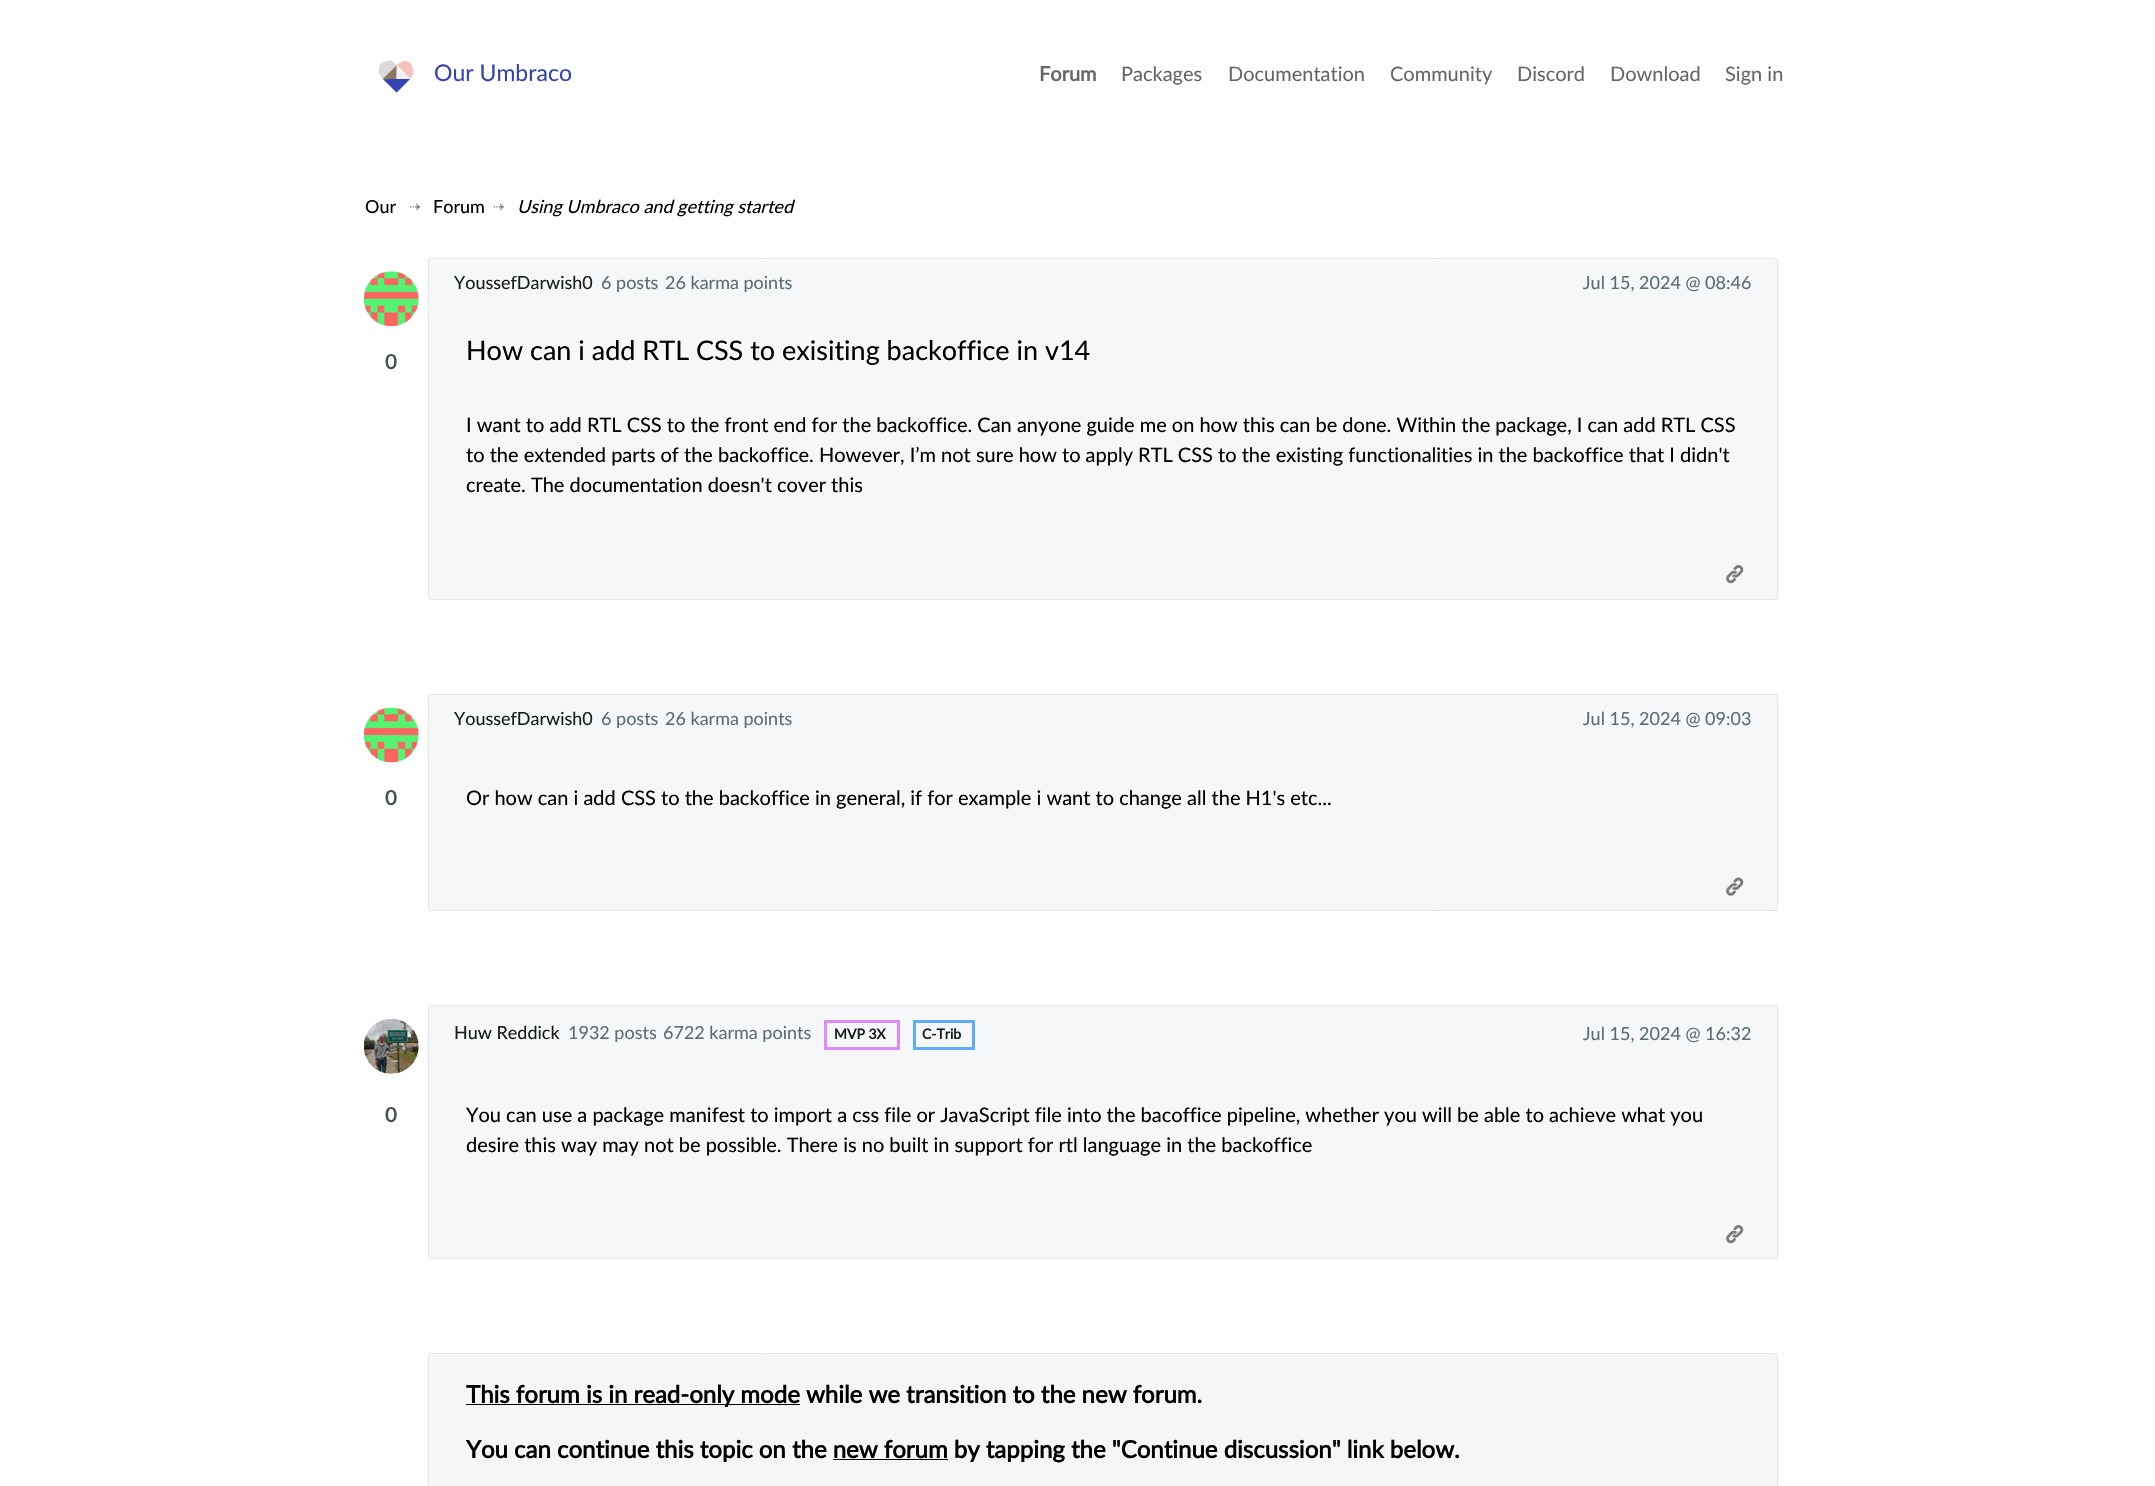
void draw(SkCanvas* canvas) {
    SkPaint paint;
    paint.setAntiAlias(true);
    canvas->clear(0xFFFFFFFF);
    canvas->drawImageRect(SkImages::DeferredFromEncodedData(SkData::MakeFromFileName("img1.png")), SkRect::MakeXYWH(378, 60, 36, 33), SkSamplingOptions());
    SkFont font1(fontMgr->matchFamilyStyle("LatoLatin", SkFontStyle::Normal()), 23);
    font1.setSubpixel(true);
    paint.setColor(0xFF3544B1);
    canvas->drawString("Our Umbraco", 434, 81, font1, paint);
    SkFont font2(fontMgr->matchFamilyStyle("LatoLatin", SkFontStyle::Bold()), 20);
    font2.setSubpixel(true);
    paint.setColor(0xFF666666);
    canvas->drawString("Forum", 1039, 81, font2, paint);
    SkFont font3(fontMgr->matchFamilyStyle("LatoLatin", SkFontStyle::Normal()), 20);
    font3.setSubpixel(true);
    canvas->drawString("Packages", 1121, 81, font3, paint);
    canvas->drawString("Documentation", 1228, 81, font3, paint);
    canvas->drawString("Community", 1390, 81, font3, paint);
    canvas->drawString("Discord", 1517, 81, font3, paint);
    canvas->drawString("Download", 1610, 81, font3, paint);
    canvas->drawString("Sign in", 1725, 81, font3, paint);
    SkFont font4(fontMgr->matchFamilyStyle("LatoLatin", SkFontStyle::Normal()), 18);
    font4.setSubpixel(true);
    paint.setColor(0xFF000000);
    canvas->drawString("Our", 365, 213, font4, paint);
    canvas->drawImageRect(SkImages::DeferredFromEncodedData(SkData::MakeFromFileName("img2.png")), SkRect::MakeXYWH(409, 203, 12, 8), SkSamplingOptions());
    canvas->drawString("Forum", 433, 213, font4, paint);
    canvas->drawImageRect(SkImages::DeferredFromEncodedData(SkData::MakeFromFileName("img3.png")), SkRect::MakeXYWH(493, 203, 11, 8), SkSamplingOptions());
    SkFont font5(fontMgr->matchFamilyStyle("LatoLatin", SkFontStyle::Italic()), 18);
    font5.setSubpixel(true);
    canvas->drawString("Using Umbraco and getting started", 517, 213, font5, paint);
    paint.setColor(0xFFF6F7F8);
    canvas->drawRoundRect(SkRect::MakeXYWH(428.5f, 258.5f, 1349, 341), 2, 2, paint);
    paint.setStyle(SkPaint::kStroke_Style);
    paint.setStrokeWidth(1);
    paint.setColor(0xFFE4E8EA);
    canvas->drawRoundRect(SkRect::MakeXYWH(428.5f, 258.5f, 1349, 341), 2, 2, paint);
    paint.setStyle(SkPaint::kFill_Style);
    paint.setColor(0xFF161B1C);
    canvas->drawString("YoussefDarwish0", 454, 289, font4, paint);
    paint.setColor(0xFF5A6D71);
    canvas->drawString("6 posts", 601, 289, font4, paint);
    canvas->drawString("26 karma points", 665, 289, font4, paint);
    canvas->drawString("Jul 15, 2024 @ 08:46", 1583, 289, font4, paint);
    canvas->drawImageRect(SkImages::DeferredFromEncodedData(SkData::MakeFromFileName("img4.png")), SkRect::MakeXYWH(363, 271, 56, 56), SkSamplingOptions());
    paint.setColor(0xFF445255);
    canvas->drawString("0", 385, 369, font2, paint);
    SkFont font6(fontMgr->matchFamilyStyle("LatoLatin", SkFontStyle::Normal()), 27);
    font6.setSubpixel(true);
    paint.setColor(0xFF000000);
    canvas->drawString("How can i add RTL CSS to exisiting backoffice in v14", 466, 360, font6, paint);
    canvas->drawString("I want to add RTL CSS to the front end for the backoffice. Can anyone guide me on how this can be done. Within the package, I can add RTL CSS", 466, 432, font3, paint);
    canvas->drawString("to the extended parts of the backoffice. However, I’m not sure how to apply RTL CSS to the existing functionalities in the backoffice that I didn't", 466, 462, font3, paint);
    canvas->drawString("create. The documentation doesn't cover this", 466, 492, font3, paint);
    canvas->drawImageRect(SkImages::DeferredFromEncodedData(SkData::MakeFromFileName("img5.png")), SkRect::MakeXYWH(1726, 565, 18, 19), SkSamplingOptions());
    paint.setColor(0xFFF5F7F8);
    canvas->drawRoundRect(SkRect::MakeXYWH(428, 694, 1350, 217), 2.5f, 2.5f, paint);
    paint.setStyle(SkPaint::kStroke_Style);
    paint.setColor(0x267F9499);
    canvas->drawRoundRect(SkRect::MakeXYWH(428.5f, 694.5f, 1349, 216), 2, 2, paint);
    paint.setStyle(SkPaint::kFill_Style);
    paint.setColor(0xFF161B1C);
    canvas->drawString("YoussefDarwish0", 454, 725, font4, paint);
    paint.setColor(0xFF5A6D71);
    canvas->drawString("6 posts", 601, 725, font4, paint);
    canvas->drawString("26 karma points", 665, 725, font4, paint);
    canvas->drawString("Jul 15, 2024 @ 09:03", 1583, 725, font4, paint);
    canvas->drawImageRect(SkImages::DeferredFromEncodedData(SkData::MakeFromFileName("img6.png")), SkRect::MakeXYWH(363, 707, 56, 56), SkSamplingOptions());
    paint.setColor(0xFF445255);
    canvas->drawString("0", 385, 805, font2, paint);
    paint.setColor(0xFF000000);
    canvas->drawString("Or how can i add CSS to the backoffice in general, if for example i want to change all the H1's etc...", 466, 805, font3, paint);
    canvas->drawImageRect(SkImages::DeferredFromEncodedData(SkData::MakeFromFileName("img7.png")), SkRect::MakeXYWH(1726, 877, 18, 19), SkSamplingOptions());
    paint.setColor(0xFFF6F7F8);
    canvas->drawRoundRect(SkRect::MakeXYWH(428.5f, 1005.5f, 1349, 253), 2, 2, paint);
    paint.setStyle(SkPaint::kStroke_Style);
    paint.setColor(0xFFE4E8EA);
    canvas->drawRoundRect(SkRect::MakeXYWH(428.5f, 1005.5f, 1349, 253), 2, 2, paint);
    paint.setStyle(SkPaint::kFill_Style);
    paint.setColor(0xFF161B1C);
    canvas->drawString("Huw Reddick", 454, 1039, font4, paint);
    paint.setColor(0xFF5A6D71);
    canvas->drawString("1932 posts", 568, 1039, font4, paint);
    canvas->drawString("6722 karma points", 663, 1039, font4, paint);
    paint.setStyle(SkPaint::kStroke_Style);
    paint.setStrokeWidth(3);
    paint.setColor(0xFFDF89FF);
    canvas->drawRect(SkRect::MakeXYWH(825.5f, 1021.5f, 73, 27), paint);
    SkFont font7(fontMgr->matchFamilyStyle("LatoLatin", SkFontStyle::Bold()), 14);
    font7.setSubpixel(true);
    paint.setStyle(SkPaint::kFill_Style);
    paint.setColor(0xFF161B1C);
    canvas->drawString("MVP 3X", 834, 1039, font7, paint);
    paint.setStyle(SkPaint::kStroke_Style);
    paint.setColor(0xFF5DACFF);
    canvas->drawRect(SkRect::MakeXYWH(914.5f, 1021.5f, 59, 27), paint);
    paint.setStyle(SkPaint::kFill_Style);
    paint.setColor(0xFF161B1C);
    canvas->drawString("C-Trib", 922, 1039, font7, paint);
    paint.setColor(0xFF5A6D71);
    canvas->drawString("Jul 15, 2024 @ 16:32", 1583, 1040, font4, paint);
    canvas->drawImageRect(SkImages::DeferredFromEncodedData(SkData::MakeFromFileName("img8.png")), SkRect::MakeXYWH(363, 1019, 56, 55), SkSamplingOptions());
    paint.setColor(0xFF445255);
    canvas->drawString("0", 385, 1122, font2, paint);
    paint.setColor(0xFF000000);
    canvas->drawString("You can use a package manifest to import a css file or JavaScript file into the bacoffice pipeline, whether you will be able to achieve what you", 466, 1122, font3, paint);
    canvas->drawString("desire this way may not be possible. There is no built in support for rtl language in the backoffice", 466, 1152, font3, paint);
    canvas->drawImageRect(SkImages::DeferredFromEncodedData(SkData::MakeFromFileName("img5.png")), SkRect::MakeXYWH(1726, 1225, 18, 19), SkSamplingOptions());
    paint.setColor(0xFFF5F7F7);
    canvas->drawRoundRect(SkRect::MakeXYWH(428, 1353, 1350, 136), 2.5f, 2.5f, paint);
    paint.setStyle(SkPaint::kStroke_Style);
    paint.setStrokeWidth(1);
    paint.setColor(0x267F9499);
    canvas->drawRoundRect(SkRect::MakeXYWH(428.5f, 1353.5f, 1349, 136), 2, 2, paint);
    paint.setStyle(SkPaint::kFill_Style);
    paint.setColor(0xFF000000);
    canvas->drawRect(SkRect::MakeXYWH(466, 1404, 334, 1), paint);
    SkFont font8(fontMgr->matchFamilyStyle("LatoLatin", SkFontStyle::Bold()), 24);
    font8.setSubpixel(true);
    canvas->drawString("This forum is in read-only mode while we transition to the new forum.", 466, 1403, font8, paint);
    canvas->drawString("You can continue this topic on the new forum by tapping the \"Continue discussion\" link below.", 466, 1458, font8, paint);
    canvas->drawRect(SkRect::MakeXYWH(833, 1459, 115, 1), paint);
}
